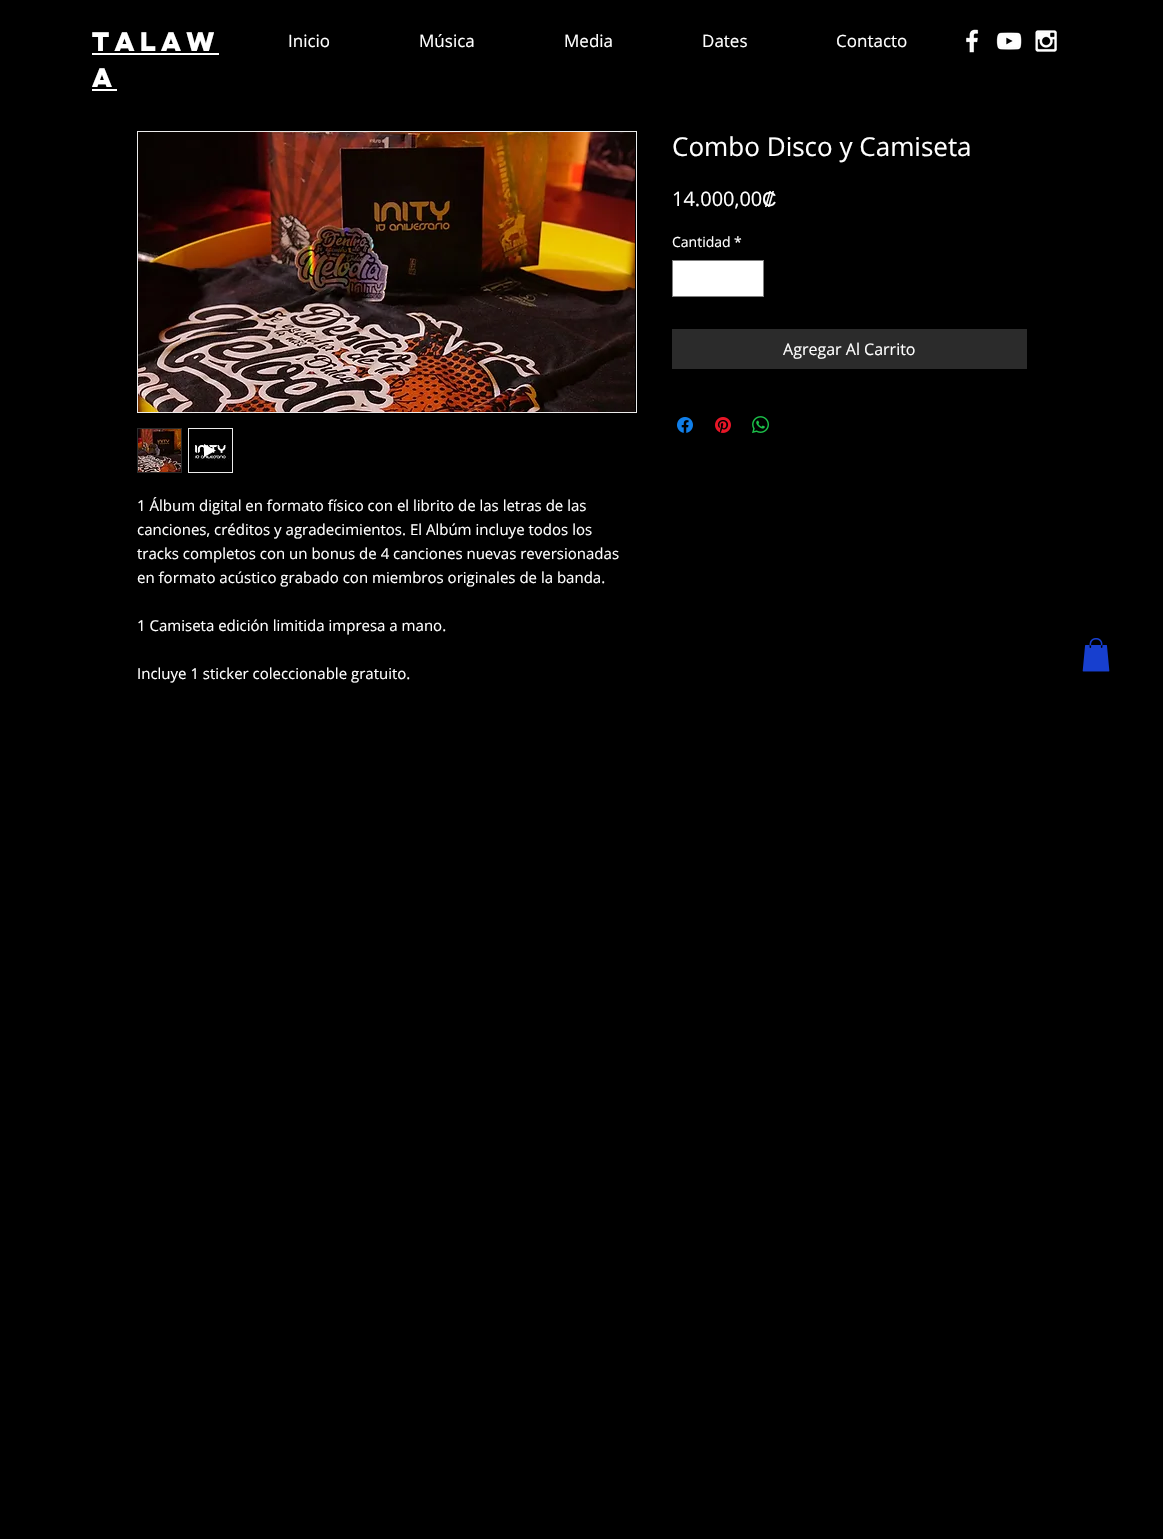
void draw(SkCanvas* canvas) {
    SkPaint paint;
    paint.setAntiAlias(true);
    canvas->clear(0xFF000000);
    SkFont font1(fontMgr->matchFamilyStyle("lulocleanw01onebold", SkFontStyle::Bold()), 24);
    font1.setSubpixel(true);
    paint.setColor(0xFFFFFFFF);
    canvas->drawString("TALAW", 92, 51, font1, paint);
    canvas->drawRect(SkRect::MakeXYWH(92, 53, 127, 2), paint);
    canvas->drawString("A", 92, 87, font1, paint);
    canvas->drawRect(SkRect::MakeXYWH(92, 89, 25, 2), paint);
    SkFont font2(fontMgr->matchFamilyStyle("Open Sans", SkFontStyle::Normal()), 17);
    font2.setSubpixel(true);
    canvas->drawString("Inicio", 288, 47, font2, paint);
    canvas->drawString("Música", 419, 47, font2, paint);
    canvas->drawString("Media", 564, 47, font2, paint);
    canvas->drawString("Dates", 702, 47, font2, paint);
    canvas->drawString("Contacto", 836, 47, font2, paint);
    canvas->drawImageRect(SkImages::DeferredFromEncodedData(SkData::MakeFromFileName("img1.png")), SkRect::MakeXYWH(966, 29, 13, 24), SkSamplingOptions());
    canvas->drawImageRect(SkImages::DeferredFromEncodedData(SkData::MakeFromFileName("img2.png")), SkRect::MakeXYWH(996, 32, 26, 18), SkSamplingOptions());
    canvas->drawImageRect(SkImages::DeferredFromEncodedData(SkData::MakeFromFileName("img3.png")), SkRect::MakeXYWH(1035, 30, 22, 22), SkSamplingOptions());
    SkFont font3(fontMgr->matchFamilyStyle("Open Sans", SkFontStyle::Normal()), 26);
    font3.setSubpixel(true);
    canvas->drawString("Combo Disco y Camiseta", 672, 156, font3, paint);
    SkFont font4(fontMgr->matchFamilyStyle("Open Sans", SkFontStyle::Normal()), 20);
    font4.setSubpixel(true);
    canvas->drawString("14.000,00", 672, 206, font4, paint);
    SkFont font5(fontMgr->matchFamilyStyle("Liberation Sans", SkFontStyle::Normal()), 20);
    font5.setSubpixel(true);
    canvas->drawString("₡", 762, 206, font5, paint);
    SkFont font6(fontMgr->matchFamilyStyle("Open Sans", SkFontStyle::Normal()), 14);
    font6.setSubpixel(true);
    canvas->drawString("Cantidad", 672, 247, font6, paint);
    canvas->drawString("*", 734, 247, font6, paint);
    canvas->drawRect(SkRect::MakeXYWH(672.5f, 260.5f, 91, 36), paint);
    paint.setStyle(SkPaint::kStroke_Style);
    paint.setStrokeWidth(1);
    paint.setColor(0xFF808080);
    canvas->drawRect(SkRect::MakeXYWH(672.5f, 260.5f, 91, 36), paint);
    paint.setStyle(SkPaint::kFill_Style);
    paint.setColor(0xFF2B2B2B);
    canvas->drawRect(SkRect::MakeXYWH(672, 329, 355, 40), paint);
    SkFont font7(fontMgr->matchFamilyStyle("Open Sans", SkFontStyle::Normal()), 16);
    font7.setSubpixel(true);
    paint.setColor(0xFFFFFFFF);
    canvas->drawString("Agregar Al Carrito", 783, 355, font7, paint);
    canvas->drawImageRect(SkImages::DeferredFromEncodedData(SkData::MakeFromFileName("img4.png")), SkRect::MakeXYWH(677, 417, 16, 16), SkSamplingOptions());
    canvas->drawImageRect(SkImages::DeferredFromEncodedData(SkData::MakeFromFileName("img5.png")), SkRect::MakeXYWH(715, 417, 16, 16), SkSamplingOptions());
    canvas->drawImageRect(SkImages::DeferredFromEncodedData(SkData::MakeFromFileName("img6.png")), SkRect::MakeXYWH(752, 416, 17, 17), SkSamplingOptions());
    paint.setStyle(SkPaint::kStroke_Style);
    paint.setColor(0xFFECECEC);
    canvas->drawRect(SkRect::MakeXYWH(137.5f, 131.5f, 499, 281), paint);
    canvas->drawImageRect(SkImages::DeferredFromEncodedData(SkData::MakeFromFileName("img7.png")), SkRect::MakeXYWH(138, 132, 497, 280), SkSamplingOptions());
    paint.setColor(0xFF2B2B2B);
    canvas->drawRect(SkRect::MakeXYWH(137.5f, 428.5f, 44, 44), paint);
    canvas->drawImageRect(SkImages::DeferredFromEncodedData(SkData::MakeFromFileName("img8.png")), SkRect::MakeXYWH(138, 429, 43, 43), SkSamplingOptions());
    paint.setStyle(SkPaint::kFill_Style);
    paint.setColor(0xFFECECEC);
    canvas->drawRect(SkRect::MakeXYWH(188, 428, 45, 45), paint);
    canvas->drawImageRect(SkImages::DeferredFromEncodedData(SkData::MakeFromFileName("img9.png")), SkRect::MakeXYWH(189, 429, 43, 43), SkSamplingOptions());
    paint.setColor(0xFFFFFFFF);
    canvas->drawPath(SkPathBuilder().moveTo(204, 444).lineTo(204, 457).lineTo(216, 450.5f).close().detach(), paint);
    SkFont font8(fontMgr->matchFamilyStyle("Open Sans", SkFontStyle::Normal()), 15);
    font8.setSubpixel(true);
    canvas->drawString("1 Álbum digital en formato físico con el librito de las letras de las", 137, 511, font8, paint);
    canvas->drawString("canciones, créditos y agradecimientos. El Albúm incluye todos los", 137, 535, font8, paint);
    canvas->drawString("tracks completos con un bonus de 4 canciones nuevas reversionadas", 137, 559, font8, paint);
    canvas->drawString("en formato acústico grabado con miembros originales de la banda.", 137, 583, font8, paint);
    canvas->drawString("1 Camiseta edición limitida impresa a mano.", 137, 631, font8, paint);
    canvas->drawString("Incluye 1 sticker coleccionable gratuito.", 137, 679, font8, paint);
    canvas->drawImageRect(SkImages::DeferredFromEncodedData(SkData::MakeFromFileName("img10.png")), SkRect::MakeXYWH(1082, 638, 28, 34), SkSamplingOptions());
}
